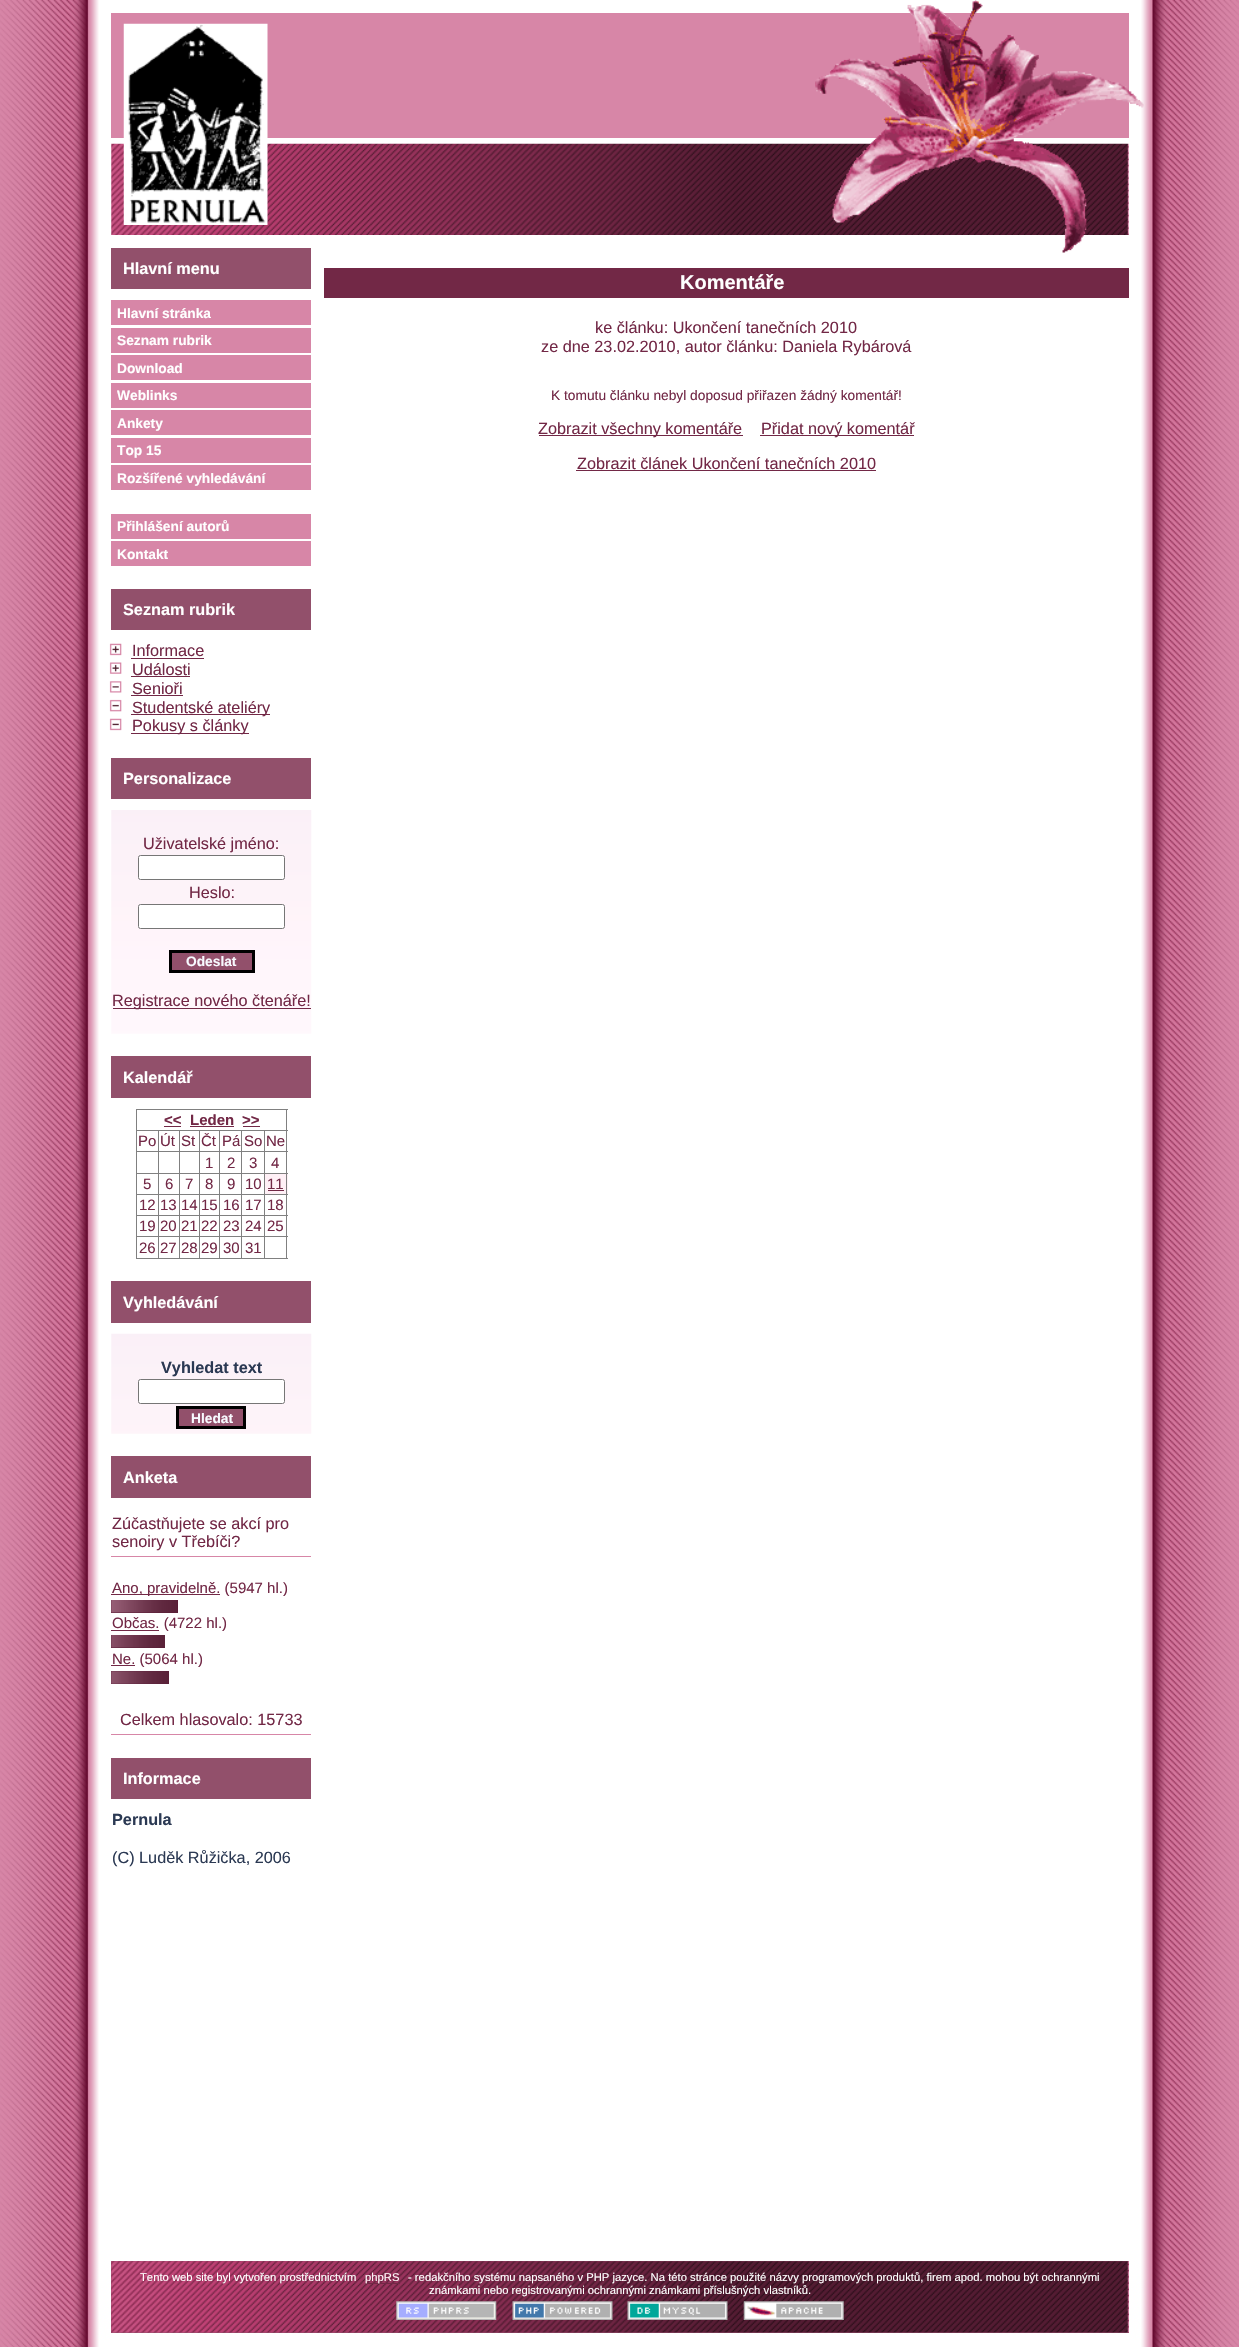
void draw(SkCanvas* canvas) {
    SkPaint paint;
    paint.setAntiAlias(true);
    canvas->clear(0xFFFFFFFF);
    canvas->drawImageRect(SkImages::DeferredFromEncodedData(SkData::MakeFromFileName("img1.png")), SkRect::MakeXYWH(0, 0, 99, 2347), SkSamplingOptions());
    paint.setColor(0xFFD786A7);
    canvas->drawRect(SkRect::MakeXYWH(111, 13, 1018, 125), paint);
    canvas->drawImageRect(SkImages::DeferredFromEncodedData(SkData::MakeFromFileName("img4.png")), SkRect::MakeXYWH(111, 143, 1018, 92), SkSamplingOptions());
    canvas->drawImageRect(SkImages::DeferredFromEncodedData(SkData::MakeFromFileName("img2.png")), SkRect::MakeXYWH(123, 23, 145, 202), SkSamplingOptions());
    canvas->drawImageRect(SkImages::DeferredFromEncodedData(SkData::MakeFromFileName("img20.png")), SkRect::MakeXYWH(1141, 0, 98, 2347), SkSamplingOptions());
    canvas->drawImageRect(SkImages::DeferredFromEncodedData(SkData::MakeFromFileName("img3.png")), SkRect::MakeXYWH(815, 0, 329, 253), SkSamplingOptions());
    paint.setColor(0xFF92506B);
    canvas->drawRect(SkRect::MakeXYWH(111, 248, 200, 41), paint);
    SkFont font1(fontMgr->matchFamilyStyle("Liberation Sans", SkFontStyle::Bold()), 16.25f);
    font1.setSubpixel(true);
    paint.setColor(0xFFFFFFFF);
    canvas->drawString("Hlavní menu", 123, 274, font1, paint);
    paint.setColor(0xFFD786A7);
    canvas->drawRect(SkRect::MakeXYWH(111, 300, 200, 25), paint);
    SkFont font2(fontMgr->matchFamilyStyle("Liberation Sans", SkFontStyle::Bold()), 13.75f);
    font2.setSubpixel(true);
    paint.setColor(0xFFFFFFFF);
    canvas->drawString("Hlavní stránka", 117, 318, font2, paint);
    paint.setColor(0xFFD786A7);
    canvas->drawRect(SkRect::MakeXYWH(111, 328, 200, 25), paint);
    paint.setColor(0xFFFFFFFF);
    canvas->drawString("Seznam rubrik", 117, 345, font2, paint);
    paint.setColor(0xFFD786A7);
    canvas->drawRect(SkRect::MakeXYWH(111, 355, 200, 25), paint);
    paint.setColor(0xFFFFFFFF);
    canvas->drawString("Download", 117, 373, font2, paint);
    paint.setColor(0xFFD786A7);
    canvas->drawRect(SkRect::MakeXYWH(111, 383, 200, 25), paint);
    paint.setColor(0xFFFFFFFF);
    canvas->drawString("Weblinks", 117, 400, font2, paint);
    paint.setColor(0xFFD786A7);
    canvas->drawRect(SkRect::MakeXYWH(111, 410, 200, 25), paint);
    paint.setColor(0xFFFFFFFF);
    canvas->drawString("Ankety", 117, 428, font2, paint);
    paint.setColor(0xFFD786A7);
    canvas->drawRect(SkRect::MakeXYWH(111, 438, 200, 25), paint);
    paint.setColor(0xFFFFFFFF);
    canvas->drawString("Top 15", 117, 455, font2, paint);
    paint.setColor(0xFFD786A7);
    canvas->drawRect(SkRect::MakeXYWH(111, 465, 200, 25), paint);
    paint.setColor(0xFFFFFFFF);
    canvas->drawString("Rozšířené vyhledávání", 117, 483, font2, paint);
    paint.setColor(0xFFD786A7);
    canvas->drawRect(SkRect::MakeXYWH(111, 514, 200, 25), paint);
    paint.setColor(0xFFFFFFFF);
    canvas->drawString("Přihlášení autorů", 117, 531, font2, paint);
    paint.setColor(0xFFD786A7);
    canvas->drawRect(SkRect::MakeXYWH(111, 541, 200, 25), paint);
    paint.setColor(0xFFFFFFFF);
    canvas->drawString("Kontakt", 117, 559, font2, paint);
    paint.setColor(0xFF92506B);
    canvas->drawRect(SkRect::MakeXYWH(111, 589, 200, 41), paint);
    paint.setColor(0xFFFFFFFF);
    canvas->drawString("Seznam rubrik", 123, 615, font1, paint);
    canvas->drawImageRect(SkImages::DeferredFromEncodedData(SkData::MakeFromFileName("img5.png")), SkRect::MakeXYWH(109, 643, 13, 13), SkSamplingOptions());
    SkFont font3(fontMgr->matchFamilyStyle("Liberation Sans", SkFontStyle::Normal()), 16.25f);
    font3.setSubpixel(true);
    paint.setColor(0xFF722846);
    canvas->drawString("Informace", 132, 656, font3, paint);
    canvas->drawRect(SkRect::MakeXYWH(131, 658, 73, 1), paint);
    canvas->drawImageRect(SkImages::DeferredFromEncodedData(SkData::MakeFromFileName("img6.png")), SkRect::MakeXYWH(109, 662, 13, 12), SkSamplingOptions());
    canvas->drawString("Události", 132, 675, font3, paint);
    canvas->drawRect(SkRect::MakeXYWH(131, 676, 59, 1), paint);
    canvas->drawImageRect(SkImages::DeferredFromEncodedData(SkData::MakeFromFileName("img7.png")), SkRect::MakeXYWH(109, 681, 13, 12), SkSamplingOptions());
    canvas->drawString("Senioři", 132, 694, font3, paint);
    canvas->drawRect(SkRect::MakeXYWH(131, 695, 52, 1), paint);
    canvas->drawImageRect(SkImages::DeferredFromEncodedData(SkData::MakeFromFileName("img8.png")), SkRect::MakeXYWH(109, 699, 13, 13), SkSamplingOptions());
    canvas->drawRect(SkRect::MakeXYWH(131, 714, 139, 1), paint);
    canvas->drawString("Studentské ateliéry", 132, 713, font3, paint);
    canvas->drawImageRect(SkImages::DeferredFromEncodedData(SkData::MakeFromFileName("img9.png")), SkRect::MakeXYWH(109, 718, 13, 13), SkSamplingOptions());
    canvas->drawRect(SkRect::MakeXYWH(131, 733, 118, 1), paint);
    canvas->drawString("Pokusy s články", 132, 731, font3, paint);
    paint.setColor(0xFF92506B);
    canvas->drawRect(SkRect::MakeXYWH(111, 758, 200, 41), paint);
    paint.setColor(0xFFFFFFFF);
    canvas->drawString("Personalizace", 123, 784, font1, paint);
    canvas->drawImageRect(SkImages::DeferredFromEncodedData(SkData::MakeFromFileName("img10.png")), SkRect::MakeXYWH(111, 810, 201, 224), SkSamplingOptions());
    paint.setColor(0xFF722846);
    canvas->drawString("Uživatelské jméno:", 143, 849, font3, paint);
    paint.setColor(0xFFFFFFFF);
    canvas->drawRoundRect(SkRect::MakeXYWH(138.5f, 855.5f, 146, 24), 2, 2, paint);
    paint.setStyle(SkPaint::kStroke_Style);
    paint.setStrokeWidth(1);
    paint.setColor(0xFF767676);
    canvas->drawRoundRect(SkRect::MakeXYWH(138.5f, 855.5f, 146, 24), 2, 2, paint);
    paint.setStyle(SkPaint::kFill_Style);
    paint.setColor(0xFF722846);
    canvas->drawString("Heslo:", 189, 898, font3, paint);
    paint.setColor(0xFFFFFFFF);
    canvas->drawRoundRect(SkRect::MakeXYWH(138.5f, 904.5f, 146, 24), 2, 2, paint);
    paint.setStyle(SkPaint::kStroke_Style);
    paint.setColor(0xFF767676);
    canvas->drawRoundRect(SkRect::MakeXYWH(138.5f, 904.5f, 146, 24), 2, 2, paint);
    paint.setStyle(SkPaint::kFill_Style);
    paint.setColor(0xFF92506B);
    canvas->drawRect(SkRect::MakeXYWH(170.5f, 951.5f, 83, 20), paint);
    paint.setStyle(SkPaint::kStroke_Style);
    paint.setStrokeWidth(3);
    paint.setColor(0xFF000000);
    canvas->drawRect(SkRect::MakeXYWH(170.5f, 951.5f, 83, 20), paint);
    paint.setStyle(SkPaint::kFill_Style);
    paint.setColor(0xFFF8FAFF);
    canvas->drawString("Odeslat", 186, 966, font2, paint);
    paint.setColor(0xFF722846);
    canvas->drawRect(SkRect::MakeXYWH(113, 1008, 198, 1), paint);
    canvas->drawString("Registrace nového čtenáře!", 112, 1006, font3, paint);
    paint.setColor(0xFF92506B);
    canvas->drawRect(SkRect::MakeXYWH(111, 1056, 200, 42), paint);
    paint.setColor(0xFFFFFFFF);
    canvas->drawString("Kalendář", 123, 1083, font1, paint);
    paint.setColor(0xFF808080);
    canvas->drawRect(SkRect::MakeXYWH(136, 1109, 152, 1), paint);
    paint.setColor(0xFFFFF0F6);
    canvas->drawRect(SkRect::MakeXYWH(265, 1174, 23, 20), paint);
    paint.setColor(0xFF808080);
    canvas->drawRect(SkRect::MakeXYWH(286, 1109, 1, 150), paint);
    canvas->drawRect(SkRect::MakeXYWH(136, 1258, 152, 1), paint);
    canvas->drawRect(SkRect::MakeXYWH(136, 1109, 1, 150), paint);
    SkFont font4(fontMgr->matchFamilyStyle("Liberation Sans", SkFontStyle::Bold()), 15);
    font4.setSubpixel(true);
    paint.setColor(0xFF722846);
    canvas->drawString("<<", 164, 1125, font4, paint);
    canvas->drawRect(SkRect::MakeXYWH(164, 1126, 17, 1), paint);
    canvas->drawString("Leden", 190, 1125, font4, paint);
    canvas->drawRect(SkRect::MakeXYWH(190, 1126, 44, 1), paint);
    canvas->drawString(">>", 242, 1125, font4, paint);
    canvas->drawRect(SkRect::MakeXYWH(243, 1126, 17, 1), paint);
    paint.setColor(0xFF808080);
    canvas->drawRect(SkRect::MakeXYWH(264, 1130, 24, 1), paint);
    canvas->drawRect(SkRect::MakeXYWH(264, 1151, 24, 1), paint);
    canvas->drawRect(SkRect::MakeXYWH(264, 1173, 24, 1), paint);
    canvas->drawRect(SkRect::MakeXYWH(264, 1194, 24, 1), paint);
    canvas->drawRect(SkRect::MakeXYWH(264, 1215, 24, 1), paint);
    canvas->drawRect(SkRect::MakeXYWH(264, 1236, 24, 1), paint);
    canvas->drawRect(SkRect::MakeXYWH(264, 1236, 1, 23), paint);
    canvas->drawRect(SkRect::MakeXYWH(241, 1236, 24, 1), paint);
    canvas->drawRect(SkRect::MakeXYWH(264, 1215, 1, 23), paint);
    canvas->drawRect(SkRect::MakeXYWH(241, 1215, 24, 1), paint);
    canvas->drawRect(SkRect::MakeXYWH(264, 1194, 1, 22), paint);
    canvas->drawRect(SkRect::MakeXYWH(241, 1194, 24, 1), paint);
    canvas->drawRect(SkRect::MakeXYWH(264, 1173, 1, 22), paint);
    canvas->drawRect(SkRect::MakeXYWH(241, 1173, 24, 1), paint);
    canvas->drawRect(SkRect::MakeXYWH(264, 1151, 1, 23), paint);
    canvas->drawRect(SkRect::MakeXYWH(241, 1151, 24, 1), paint);
    canvas->drawRect(SkRect::MakeXYWH(264, 1130, 1, 23), paint);
    canvas->drawRect(SkRect::MakeXYWH(241, 1130, 24, 1), paint);
    canvas->drawRect(SkRect::MakeXYWH(241, 1236, 1, 23), paint);
    canvas->drawRect(SkRect::MakeXYWH(219, 1236, 24, 1), paint);
    canvas->drawRect(SkRect::MakeXYWH(241, 1215, 1, 23), paint);
    canvas->drawRect(SkRect::MakeXYWH(219, 1215, 24, 1), paint);
    canvas->drawRect(SkRect::MakeXYWH(241, 1194, 1, 22), paint);
    canvas->drawRect(SkRect::MakeXYWH(219, 1194, 24, 1), paint);
    canvas->drawRect(SkRect::MakeXYWH(241, 1173, 1, 22), paint);
    canvas->drawRect(SkRect::MakeXYWH(219, 1173, 24, 1), paint);
    canvas->drawRect(SkRect::MakeXYWH(241, 1151, 1, 23), paint);
    canvas->drawRect(SkRect::MakeXYWH(219, 1151, 24, 1), paint);
    canvas->drawRect(SkRect::MakeXYWH(241, 1130, 1, 23), paint);
    canvas->drawRect(SkRect::MakeXYWH(219, 1130, 24, 1), paint);
    canvas->drawRect(SkRect::MakeXYWH(219, 1236, 1, 23), paint);
    canvas->drawRect(SkRect::MakeXYWH(199, 1236, 21, 1), paint);
    canvas->drawRect(SkRect::MakeXYWH(219, 1215, 1, 23), paint);
    canvas->drawRect(SkRect::MakeXYWH(199, 1215, 21, 1), paint);
    canvas->drawRect(SkRect::MakeXYWH(219, 1194, 1, 22), paint);
    canvas->drawRect(SkRect::MakeXYWH(199, 1194, 21, 1), paint);
    canvas->drawRect(SkRect::MakeXYWH(219, 1173, 1, 22), paint);
    canvas->drawRect(SkRect::MakeXYWH(199, 1173, 21, 1), paint);
    canvas->drawRect(SkRect::MakeXYWH(219, 1151, 1, 23), paint);
    canvas->drawRect(SkRect::MakeXYWH(199, 1151, 21, 1), paint);
    canvas->drawRect(SkRect::MakeXYWH(219, 1130, 1, 23), paint);
    canvas->drawRect(SkRect::MakeXYWH(199, 1130, 21, 1), paint);
    canvas->drawRect(SkRect::MakeXYWH(199, 1236, 1, 23), paint);
    canvas->drawRect(SkRect::MakeXYWH(179, 1236, 21, 1), paint);
    canvas->drawRect(SkRect::MakeXYWH(199, 1215, 1, 23), paint);
    canvas->drawRect(SkRect::MakeXYWH(179, 1215, 21, 1), paint);
    canvas->drawRect(SkRect::MakeXYWH(199, 1194, 1, 22), paint);
    canvas->drawRect(SkRect::MakeXYWH(179, 1194, 21, 1), paint);
    canvas->drawRect(SkRect::MakeXYWH(199, 1173, 1, 22), paint);
    canvas->drawRect(SkRect::MakeXYWH(179, 1173, 21, 1), paint);
    canvas->drawRect(SkRect::MakeXYWH(199, 1151, 1, 23), paint);
    canvas->drawRect(SkRect::MakeXYWH(179, 1151, 21, 1), paint);
    canvas->drawRect(SkRect::MakeXYWH(199, 1130, 1, 23), paint);
    canvas->drawRect(SkRect::MakeXYWH(179, 1130, 21, 1), paint);
    canvas->drawRect(SkRect::MakeXYWH(179, 1236, 1, 23), paint);
    canvas->drawRect(SkRect::MakeXYWH(158, 1236, 22, 1), paint);
    canvas->drawRect(SkRect::MakeXYWH(179, 1215, 1, 23), paint);
    canvas->drawRect(SkRect::MakeXYWH(158, 1215, 22, 1), paint);
    canvas->drawRect(SkRect::MakeXYWH(179, 1194, 1, 22), paint);
    canvas->drawRect(SkRect::MakeXYWH(158, 1194, 22, 1), paint);
    canvas->drawRect(SkRect::MakeXYWH(179, 1173, 1, 22), paint);
    canvas->drawRect(SkRect::MakeXYWH(158, 1173, 22, 1), paint);
    canvas->drawRect(SkRect::MakeXYWH(179, 1151, 1, 23), paint);
    canvas->drawRect(SkRect::MakeXYWH(158, 1151, 22, 1), paint);
    canvas->drawRect(SkRect::MakeXYWH(179, 1130, 1, 23), paint);
    canvas->drawRect(SkRect::MakeXYWH(158, 1130, 22, 1), paint);
    canvas->drawRect(SkRect::MakeXYWH(158, 1236, 1, 23), paint);
    canvas->drawRect(SkRect::MakeXYWH(136, 1236, 23, 1), paint);
    canvas->drawRect(SkRect::MakeXYWH(158, 1215, 1, 23), paint);
    canvas->drawRect(SkRect::MakeXYWH(136, 1215, 23, 1), paint);
    canvas->drawRect(SkRect::MakeXYWH(158, 1194, 1, 22), paint);
    canvas->drawRect(SkRect::MakeXYWH(136, 1194, 23, 1), paint);
    canvas->drawRect(SkRect::MakeXYWH(158, 1173, 1, 22), paint);
    canvas->drawRect(SkRect::MakeXYWH(136, 1173, 23, 1), paint);
    canvas->drawRect(SkRect::MakeXYWH(158, 1151, 1, 23), paint);
    canvas->drawRect(SkRect::MakeXYWH(136, 1151, 23, 1), paint);
    canvas->drawRect(SkRect::MakeXYWH(158, 1130, 1, 23), paint);
    canvas->drawRect(SkRect::MakeXYWH(136, 1130, 23, 1), paint);
    SkFont font5(fontMgr->matchFamilyStyle("Liberation Sans", SkFontStyle::Normal()), 15);
    font5.setSubpixel(true);
    paint.setColor(0xFF722846);
    canvas->drawString("Po", 138, 1146, font5, paint);
    canvas->drawString("Út", 160, 1146, font5, paint);
    canvas->drawString("St", 181, 1146, font5, paint);
    canvas->drawString("Čt", 201, 1146, font5, paint);
    canvas->drawString("Pá", 222, 1146, font5, paint);
    canvas->drawString("So", 244, 1146, font5, paint);
    canvas->drawString("Ne", 266, 1146, font5, paint);
    canvas->drawString("1", 205, 1168, font5, paint);
    canvas->drawString("2", 227, 1168, font5, paint);
    canvas->drawString("3", 249, 1168, font5, paint);
    canvas->drawString("4", 271, 1168, font5, paint);
    canvas->drawString("5", 143, 1189, font5, paint);
    canvas->drawString("6", 165, 1189, font5, paint);
    canvas->drawString("7", 185, 1189, font5, paint);
    canvas->drawString("8", 205, 1189, font5, paint);
    canvas->drawString("9", 227, 1189, font5, paint);
    canvas->drawString("10", 245, 1189, font5, paint);
    canvas->drawString("11", 267, 1189, font5, paint);
    canvas->drawRect(SkRect::MakeXYWH(268, 1190, 16, 1), paint);
    canvas->drawString("12", 139, 1210, font5, paint);
    canvas->drawString("13", 160, 1210, font5, paint);
    canvas->drawString("14", 181, 1210, font5, paint);
    canvas->drawString("15", 201, 1210, font5, paint);
    canvas->drawString("16", 223, 1210, font5, paint);
    canvas->drawString("17", 245, 1210, font5, paint);
    canvas->drawString("18", 267, 1210, font5, paint);
    canvas->drawString("19", 139, 1231, font5, paint);
    canvas->drawString("20", 160, 1231, font5, paint);
    canvas->drawString("21", 181, 1231, font5, paint);
    canvas->drawString("22", 201, 1231, font5, paint);
    canvas->drawString("23", 223, 1231, font5, paint);
    canvas->drawString("24", 245, 1231, font5, paint);
    canvas->drawString("25", 267, 1231, font5, paint);
    canvas->drawString("26", 139, 1253, font5, paint);
    canvas->drawString("27", 160, 1253, font5, paint);
    canvas->drawString("28", 181, 1253, font5, paint);
    canvas->drawString("29", 201, 1253, font5, paint);
    canvas->drawString("30", 223, 1253, font5, paint);
    canvas->drawString("31", 245, 1253, font5, paint);
    paint.setColor(0xFF92506B);
    canvas->drawRect(SkRect::MakeXYWH(111, 1281, 200, 42), paint);
    paint.setColor(0xFFFFFFFF);
    canvas->drawString("Vyhledávání", 123, 1308, font1, paint);
    canvas->drawImageRect(SkImages::DeferredFromEncodedData(SkData::MakeFromFileName("img11.png")), SkRect::MakeXYWH(111, 1333, 201, 101), SkSamplingOptions());
    paint.setColor(0xFF2B3953);
    canvas->drawString("Vyhledat text", 161, 1373, font1, paint);
    paint.setColor(0xFFFFFFFF);
    canvas->drawRoundRect(SkRect::MakeXYWH(138.5f, 1379.5f, 146, 24), 2, 2, paint);
    paint.setStyle(SkPaint::kStroke_Style);
    paint.setStrokeWidth(1);
    paint.setColor(0xFF767676);
    canvas->drawRoundRect(SkRect::MakeXYWH(138.5f, 1379.5f, 146, 24), 2, 2, paint);
    paint.setStyle(SkPaint::kFill_Style);
    paint.setColor(0xFF92506B);
    canvas->drawRect(SkRect::MakeXYWH(177.5f, 1407.5f, 67, 20), paint);
    paint.setStyle(SkPaint::kStroke_Style);
    paint.setStrokeWidth(3);
    paint.setColor(0xFF000000);
    canvas->drawRect(SkRect::MakeXYWH(177.5f, 1407.5f, 67, 20), paint);
    paint.setStyle(SkPaint::kFill_Style);
    paint.setColor(0xFFF8FAFF);
    canvas->drawString("Hledat", 191, 1423, font2, paint);
    paint.setColor(0xFF92506B);
    canvas->drawRect(SkRect::MakeXYWH(111, 1456, 200, 42), paint);
    paint.setColor(0xFFFFFFFF);
    canvas->drawString("Anketa", 123, 1483, font1, paint);
    paint.setColor(0xFFD786A7);
    canvas->drawRect(SkRect::MakeXYWH(111, 1556, 200, 1), paint);
    paint.setColor(0xFF722846);
    canvas->drawString("Zúčastňujete se akcí pro", 112, 1529, font3, paint);
    canvas->drawString("senoiry v Třebíči?", 112, 1547, font3, paint);
    canvas->drawRect(SkRect::MakeXYWH(111, 1594, 109, 1), paint);
    canvas->drawString("Ano, pravidelně. (5947 hl.)", 112, 1593, font5, paint);
    paint.setColor(0xFF591B35);
    canvas->drawRect(SkRect::MakeXYWH(111, 1600, 67, 13), paint);
    canvas->drawImageRect(SkImages::DeferredFromEncodedData(SkData::MakeFromFileName("img12.png")), SkRect::MakeXYWH(111, 1600, 66, 13), SkSamplingOptions());
    paint.setColor(0xFF722846);
    canvas->drawRect(SkRect::MakeXYWH(111, 1630, 48, 1), paint);
    canvas->drawString("Občas. (4722 hl.)", 112, 1628, font5, paint);
    paint.setColor(0xFF591B35);
    canvas->drawRect(SkRect::MakeXYWH(111, 1635, 54, 13), paint);
    canvas->drawImageRect(SkImages::DeferredFromEncodedData(SkData::MakeFromFileName("img13.png")), SkRect::MakeXYWH(111, 1635, 54, 13), SkSamplingOptions());
    paint.setColor(0xFF722846);
    canvas->drawRect(SkRect::MakeXYWH(111, 1665, 24, 1), paint);
    canvas->drawString("Ne. (5064 hl.)", 112, 1664, font5, paint);
    paint.setColor(0xFF591B35);
    canvas->drawRect(SkRect::MakeXYWH(111, 1671, 58, 13), paint);
    canvas->drawImageRect(SkImages::DeferredFromEncodedData(SkData::MakeFromFileName("img14.png")), SkRect::MakeXYWH(111, 1671, 58, 13), SkSamplingOptions());
    paint.setColor(0xFFD786A7);
    canvas->drawRect(SkRect::MakeXYWH(111, 1734, 200, 1), paint);
    paint.setColor(0xFF722846);
    canvas->drawString("Celkem hlasovalo: 15733", 120, 1725, font3, paint);
    paint.setColor(0xFF92506B);
    canvas->drawRect(SkRect::MakeXYWH(111, 1758, 200, 41), paint);
    paint.setColor(0xFFFFFFFF);
    canvas->drawString("Informace", 123, 1784, font1, paint);
    paint.setColor(0xFF2B3953);
    canvas->drawString("Pernula", 112, 1825, font1, paint);
    canvas->drawString("(C) Luděk Růžička, 2006", 112, 1863, font3, paint);
    paint.setColor(0xFF722846);
    canvas->drawRect(SkRect::MakeXYWH(324, 268, 805, 30), paint);
    SkFont font6(fontMgr->matchFamilyStyle("Liberation Sans", SkFontStyle::Bold()), 20);
    font6.setSubpixel(true);
    paint.setColor(0xFFFFFFFF);
    canvas->drawString("Komentáře", 680, 289, font6, paint);
    paint.setColor(0xFF722846);
    canvas->drawString("ke článku: Ukončení tanečních 2010", 595, 333, font3, paint);
    canvas->drawString("ze dne 23.02.2010, autor článku: Daniela Rybárová", 541, 352, font3, paint);
    SkFont font7(fontMgr->matchFamilyStyle("Liberation Sans", SkFontStyle::Normal()), 13.75f);
    font7.setSubpixel(true);
    canvas->drawString("K tomutu článku nebyl doposud přiřazen žádný komentář!", 551, 400, font7, paint);
    canvas->drawRect(SkRect::MakeXYWH(539, 435, 204, 1), paint);
    canvas->drawString("Zobrazit všechny komentáře", 538, 434, font3, paint);
    canvas->drawRect(SkRect::MakeXYWH(760, 435, 154, 1), paint);
    canvas->drawString("Přidat nový komentář", 761, 434, font3, paint);
    canvas->drawString("Zobrazit článek Ukončení tanečních 2010", 577, 469, font3, paint);
    canvas->drawRect(SkRect::MakeXYWH(576, 470, 300, 1), paint);
    paint.setColor(0xFF92506B);
    canvas->drawRect(SkRect::MakeXYWH(111, 2261, 1018, 72), paint);
    canvas->drawImageRect(SkImages::DeferredFromEncodedData(SkData::MakeFromFileName("img15.png")), SkRect::MakeXYWH(111, 2261, 1018, 72), SkSamplingOptions());
    SkFont font8(fontMgr->matchFamilyStyle("Liberation Sans", SkFontStyle::Normal()), 11.25f);
    font8.setSubpixel(true);
    paint.setColor(0xFFFFFFFF);
    canvas->drawString("Tento web site byl vytvořen prostřednictvím", 140, 2281, font8, paint);
    paint.setColor(0xFF722846);
    canvas->drawRect(SkRect::MakeXYWH(365, 2283, 35, 1), paint);
    paint.setColor(0xFFFFF6F8);
    canvas->drawString("phpRS", 365, 2281, font8, paint);
    paint.setColor(0xFFFFFFFF);
    canvas->drawString("- redakčního systému napsaného v PHP jazyce. Na této stránce použité názvy programových produktů, firem apod. mohou být ochrannými", 408, 2281, font8, paint);
    canvas->drawString("známkami nebo registrovanými ochrannými známkami příslušných vlastníků.", 429, 2294, font8, paint);
    canvas->drawImageRect(SkImages::DeferredFromEncodedData(SkData::MakeFromFileName("img16.png")), SkRect::MakeXYWH(396, 2301, 101, 19), SkSamplingOptions());
    canvas->drawImageRect(SkImages::DeferredFromEncodedData(SkData::MakeFromFileName("img17.png")), SkRect::MakeXYWH(512, 2301, 101, 19), SkSamplingOptions());
    canvas->drawImageRect(SkImages::DeferredFromEncodedData(SkData::MakeFromFileName("img18.png")), SkRect::MakeXYWH(627, 2301, 101, 19), SkSamplingOptions());
    canvas->drawImageRect(SkImages::DeferredFromEncodedData(SkData::MakeFromFileName("img19.png")), SkRect::MakeXYWH(743, 2301, 101, 19), SkSamplingOptions());
}
